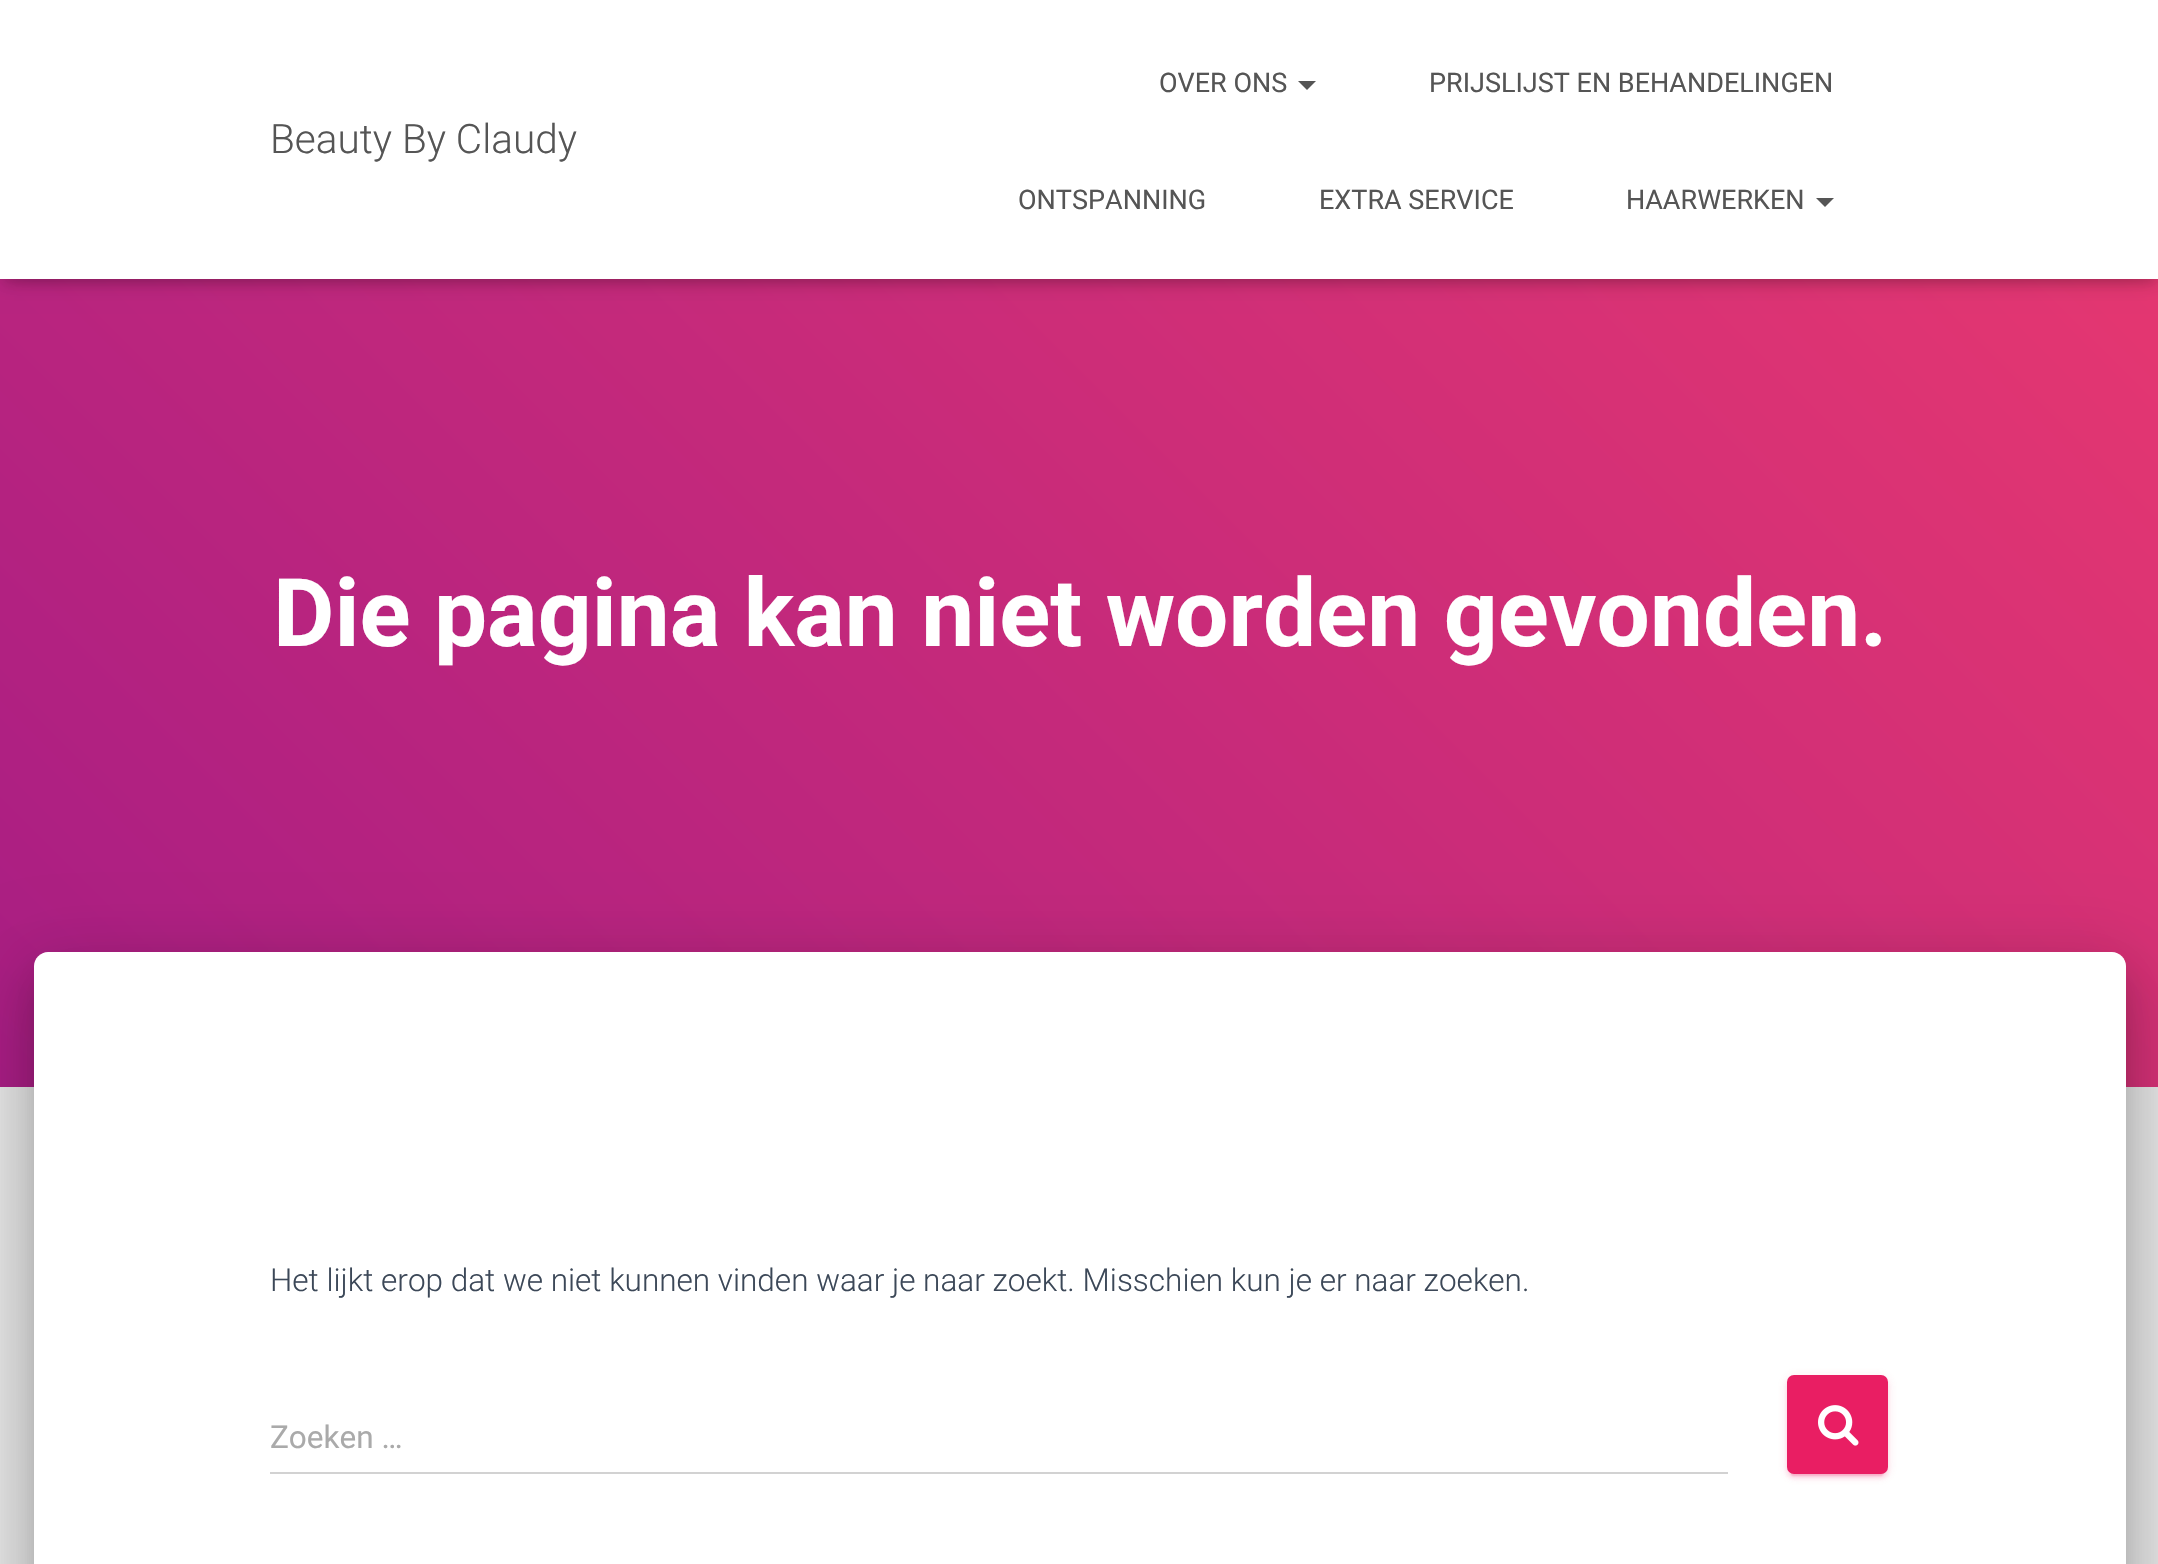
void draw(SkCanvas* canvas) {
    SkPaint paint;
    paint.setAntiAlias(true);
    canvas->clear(0xFFE5E5E5);
    {
        const SkColor colors[] = {0xFFA81D84, 0xFFEA396F};
        const float stops[] = {0, 1};
        const SkPoint ends[] = {{268, 1355}, {1892, -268}};
        paint.setShader(SkGradientShader::MakeLinear(ends, colors, stops, 2, SkTileMode::kClamp));
        paint.setAlpha(255);
    }
    canvas->drawRect(SkRect::MakeXYWH(0, 279, 2158, 808), paint);
    paint.setShader(nullptr);
    paint.setColor(0x1A000000);
    paint.setMaskFilter(SkMaskFilter::MakeBlur(kNormal_SkBlurStyle, 5.5f));
    canvas->drawRect(SkRect::MakeXYWH(5, 14, 2151, 270), paint);
    paint.setMaskFilter(nullptr);
    paint.setColor(0x1F000000);
    paint.setMaskFilter(SkMaskFilter::MakeBlur(kNormal_SkBlurStyle, 11));
    canvas->drawRect(SkRect::MakeXYWH(0, 2, 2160, 279), paint);
    paint.setMaskFilter(nullptr);
    paint.setColor(0x6B000000);
    paint.setMaskFilter(SkMaskFilter::MakeBlur(kNormal_SkBlurStyle, 11));
    canvas->drawRect(SkRect::MakeXYWH(14, 16, 2133, 252), paint);
    paint.setMaskFilter(nullptr);
    paint.setColor(0xFFFFFFFF);
    canvas->drawRect(SkRect::MakeXYWH(0, 0, 2158, 279), paint);
    SkFont font1(fontMgr->matchFamilyStyle("Roboto", SkFontStyle(300, SkFontStyle::kNormal_Width, SkFontStyle::kUpright_Slant)), 40.5f);
    font1.setSubpixel(true);
    paint.setColor(0xFF555555);
    canvas->drawString("Beauty By Claudy", 270, 153, font1, paint);
    SkFont font2(fontMgr->matchFamilyStyle("Roboto", SkFontStyle::Normal()), 27);
    font2.setSubpixel(true);
    canvas->drawString("OVER ONS", 1159, 92, font2, paint);
    canvas->drawPath(SkPathBuilder().moveTo(1298, 81).lineTo(1316, 81).lineTo(1307, 90).close().detach(), paint);
    canvas->drawString("PRIJSLIJST EN BEHANDELINGEN", 1429, 92, font2, paint);
    canvas->drawString("ONTSPANNING", 1018, 209, font2, paint);
    canvas->drawString("EXTRA SERVICE", 1319, 209, font2, paint);
    canvas->drawString("HAARWERKEN", 1626, 209, font2, paint);
    canvas->drawPath(SkPathBuilder().moveTo(1816, 198).lineTo(1834, 198).lineTo(1825, 207).close().detach(), paint);
    SkFont font3(fontMgr->matchFamilyStyle("Roboto", SkFontStyle::Bold()), 94.5f);
    font3.setSubpixel(true);
    paint.setColor(0xFFFFFFFF);
    canvas->drawString("Die pagina kan niet worden gevonden.", 273, 646, font3, paint);
    paint.setColor(0x33000000);
    paint.setMaskFilter(SkMaskFilter::MakeBlur(kNormal_SkBlurStyle, 11));
    canvas->drawRoundRect(SkRect::MakeXYWH(45, 981, 2070, 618), 2, 2, paint);
    paint.setMaskFilter(nullptr);
    paint.setColor(0x1F000000);
    paint.setMaskFilter(SkMaskFilter::MakeBlur(kNormal_SkBlurStyle, 34));
    canvas->drawRoundRect(SkRect::MakeXYWH(23, 954, 2115, 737), 25, 25, paint);
    paint.setMaskFilter(nullptr);
    paint.setColor(0x24000000);
    paint.setMaskFilter(SkMaskFilter::MakeBlur(kNormal_SkBlurStyle, 27));
    canvas->drawRoundRect(SkRect::MakeXYWH(29, 983, 2102, 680), 18, 18, paint);
    paint.setMaskFilter(nullptr);
    paint.setColor(0xFFFFFFFF);
    canvas->drawPath(SkPathBuilder().moveTo(48, 952).lineTo(2112, 952).cubicTo(2119.5f, 952, 2126, 958.5f, 2126, 966).lineTo(2126, 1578).lineTo(34, 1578).lineTo(34, 966).cubicTo(34, 958.5f, 40.5f, 952, 48, 952).close().detach(), paint);
    SkFont font4(fontMgr->matchFamilyStyle("Roboto", SkFontStyle(300, SkFontStyle::kNormal_Width, SkFontStyle::kUpright_Slant)), 31.5f);
    font4.setSubpixel(true);
    paint.setColor(0xFF3C4858);
    canvas->drawString("Het lijkt erop dat we niet kunnen vinden waar je naar zoekt. Misschien kun je er naar zoeken.", 270, 1291, font4, paint);
    SkFont font5(fontMgr->matchFamilyStyle("Roboto", SkFontStyle::Normal()), 31.5f);
    font5.setSubpixel(true);
    paint.setColor(0xFFAAAAAA);
    canvas->drawString("Zoeken …", 270, 1448, font5, paint);
    paint.setColor(0xFFD2D2D2);
    canvas->drawRect(SkRect::MakeXYWH(270, 1472, 1458, 2), paint);
    paint.setColor(0x1FE91E63);
    paint.setMaskFilter(SkMaskFilter::MakeBlur(kNormal_SkBlurStyle, 5.5f));
    canvas->drawRoundRect(SkRect::MakeXYWH(1787, 1377, 101, 99), 7, 7, paint);
    paint.setMaskFilter(nullptr);
    paint.setColor(0x33E91E63);
    paint.setMaskFilter(SkMaskFilter::MakeBlur(kNormal_SkBlurStyle, 1));
    canvas->drawRoundRect(SkRect::MakeXYWH(1791, 1386, 92, 90), 2, 2, paint);
    paint.setMaskFilter(nullptr);
    paint.setColor(0x24E91E63);
    paint.setMaskFilter(SkMaskFilter::MakeBlur(kNormal_SkBlurStyle, 2));
    canvas->drawRoundRect(SkRect::MakeXYWH(1787, 1379, 101, 99), 7, 7, paint);
    paint.setMaskFilter(nullptr);
    paint.setColor(0xFFE91E63);
    canvas->drawRoundRect(SkRect::MakeXYWH(1787, 1375, 101, 99), 7, 7, paint);
    canvas->drawImageRect(SkImages::DeferredFromEncodedData(SkData::MakeFromFileName("img1.png")), SkRect::MakeXYWH(1818, 1405, 41, 41), SkSamplingOptions());
}
